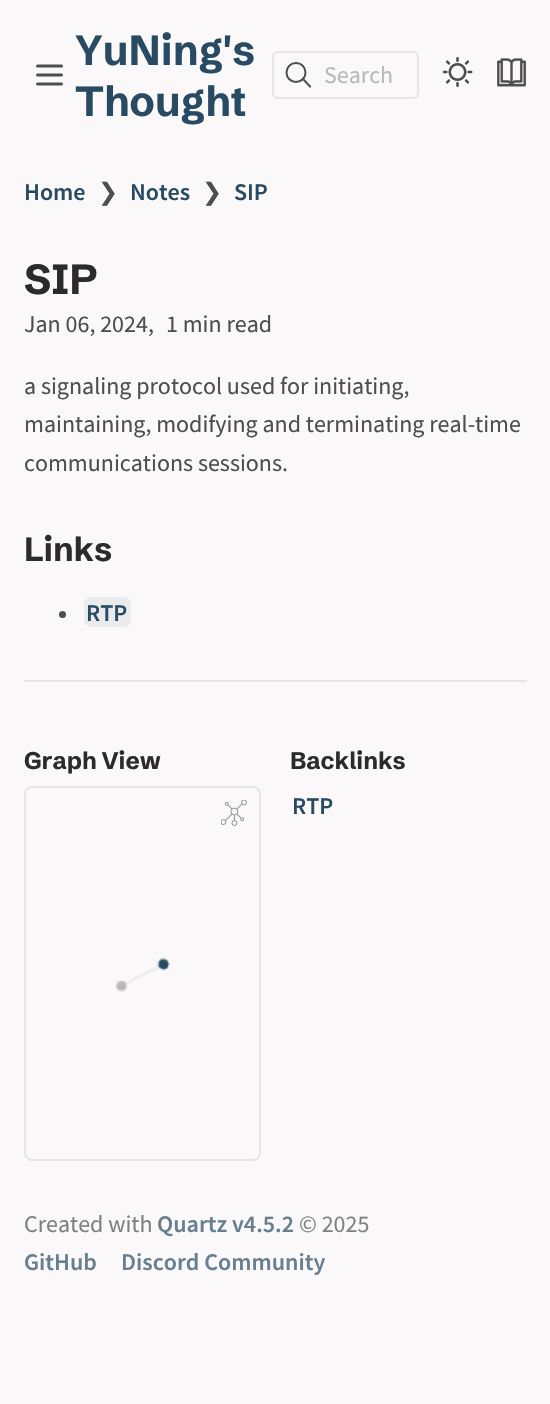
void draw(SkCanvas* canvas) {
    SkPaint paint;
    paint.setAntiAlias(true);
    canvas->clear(0xFFFAF8F8);
    paint.setStyle(SkPaint::kStroke_Style);
    paint.setStrokeWidth(3);
    paint.setStrokeCap(SkPaint::kRound_Cap);
    paint.setStrokeJoin(SkPaint::kRound_Join);
    paint.setColor(0xFF4E4E4E);
    canvas->drawPath(SkPathBuilder().moveTo(37.5f, 75).lineTo(61.5f, 75).moveTo(37.5f, 66).lineTo(61.5f, 66).moveTo(37.5f, 84).lineTo(61.5f, 84).detach(), paint);
    SkFont font1(fontMgr->matchFamilyStyle("Schibsted Grotesk", SkFontStyle::Bold()), 42);
    font1.setSubpixel(true);
    paint.setStyle(SkPaint::kFill_Style);
    paint.setColor(0xFF284B63);
    canvas->drawString("YuNing's", 75, 65, font1, paint);
    canvas->drawString("Thought", 75, 116, font1, paint);
    paint.setStyle(SkPaint::kStroke_Style);
    paint.setStrokeWidth(2);
    paint.setStrokeCap(SkPaint::kButt_Cap);
    paint.setStrokeJoin(SkPaint::kMiter_Join);
    paint.setColor(0xFFE5E5E5);
    canvas->drawRoundRect(SkRect::MakeXYWH(273, 52, 145, 46), 5, 5, paint);
    paint.setStrokeCap(SkPaint::kSquare_Cap);
    paint.setColor(0xFF4E4E4E);
    canvas->drawPath(SkPathBuilder().moveTo(310, 86.5f).lineTo(303, 79).detach(), paint);
    paint.setStrokeCap(SkPaint::kButt_Cap);
    canvas->drawCircle(296, 72.5f, 9.5f, paint);
    SkFont font2(fontMgr->matchFamilyStyle("Source Sans Pro", SkFontStyle::Normal()), 24);
    font2.setSubpixel(true);
    paint.setStyle(SkPaint::kFill_Style);
    paint.setColor(0xFFB8B8B8);
    canvas->drawString("Search", 324, 83, font2, paint);
    canvas->drawImageRect(SkImages::DeferredFromEncodedData(SkData::MakeFromFileName("img1.png")), SkRect::MakeXYWH(443, 57, 30, 30), SkSamplingOptions());
    canvas->drawImageRect(SkImages::DeferredFromEncodedData(SkData::MakeFromFileName("img2.png")), SkRect::MakeXYWH(497, 58, 30, 29), SkSamplingOptions());
    SkFont font3(fontMgr->matchFamilyStyle("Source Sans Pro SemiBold", SkFontStyle(600, SkFontStyle::kNormal_Width, SkFontStyle::kUpright_Slant)), 24);
    font3.setSubpixel(true);
    paint.setColor(0xFF284B63);
    canvas->drawString("Home", 24, 200, font3, paint);
    SkFont font4(fontMgr->matchFamilyStyle("DejaVu Sans", SkFontStyle::Normal()), 24);
    font4.setSubpixel(true);
    paint.setColor(0xFF4E4E4E);
    canvas->drawString("❯", 98, 200, font4, paint);
    paint.setColor(0xFF284B63);
    canvas->drawString("Notes", 130, 200, font3, paint);
    paint.setColor(0xFF4E4E4E);
    canvas->drawString("❯", 202, 200, font4, paint);
    paint.setColor(0xFF284B63);
    canvas->drawString("SIP", 234, 200, font3, paint);
    paint.setColor(0xFF2B2B2B);
    canvas->drawString("SIP", 24, 294, font1, paint);
    paint.setColor(0xFF4E4E4E);
    canvas->drawString("Jan 06, 2024,", 24, 332, font2, paint);
    canvas->drawString("1 min read", 166, 332, font2, paint);
    canvas->drawString("a signaling protocol used for initiating,", 24, 394, font2, paint);
    canvas->drawString("maintaining, modifying and terminating real-time", 24, 432, font2, paint);
    canvas->drawString("communications sessions.", 24, 471, font2, paint);
    SkFont font5(fontMgr->matchFamilyStyle("Schibsted Grotesk", SkFontStyle::Bold()), 33.5f);
    font5.setSubpixel(true);
    paint.setColor(0xFF2B2B2B);
    canvas->drawString("Links", 24, 561, font5, paint);
    paint.setColor(0xFF4E4E4E);
    canvas->drawCircle(62.5f, 614.5f, 3.5f, paint);
    paint.setColor(0xFFEAEBEC);
    canvas->drawRoundRect(SkRect::MakeXYWH(84, 597, 47, 30), 8, 8, paint);
    paint.setColor(0xFF284B63);
    canvas->drawString("RTP", 86, 621, font3, paint);
    paint.setColor(0xFFE5E5E5);
    canvas->drawRect(SkRect::MakeXYWH(24, 680, 503, 2), paint);
    SkFont font6(fontMgr->matchFamilyStyle("Schibsted Grotesk", SkFontStyle::Bold()), 24);
    font6.setSubpixel(true);
    paint.setColor(0xFF2B2B2B);
    canvas->drawString("Graph View", 24, 769, font6, paint);
    paint.setStyle(SkPaint::kStroke_Style);
    paint.setColor(0xFFE5E5E5);
    canvas->drawRoundRect(SkRect::MakeXYWH(25, 787, 235, 373), 7, 7, paint);
    canvas->drawImageRect(SkImages::DeferredFromEncodedData(SkData::MakeFromFileName("img3.png")), SkRect::MakeXYWH(221, 800, 26, 26), SkSamplingOptions());
    canvas->drawImageRect(SkImages::DeferredFromEncodedData(SkData::MakeFromFileName("img4.png")), SkRect::MakeXYWH(115, 958, 55, 34), SkSamplingOptions());
    paint.setStyle(SkPaint::kFill_Style);
    paint.setColor(0xFF2B2B2B);
    canvas->drawString("Backlinks", 290, 769, font6, paint);
    paint.setColor(0xFF284B63);
    canvas->drawString("RTP", 292, 814, font3, paint);
    paint.setColor(0xFF828181);
    canvas->drawString("Created with", 24, 1232, font2, paint);
    paint.setColor(0xFF677F90);
    canvas->drawString("Quartz v4.5.2", 157, 1232, font3, paint);
    paint.setColor(0xFF828181);
    canvas->drawString("© 2025", 299, 1232, font2, paint);
    paint.setColor(0xFF677F90);
    canvas->drawString("GitHub", 24, 1270, font3, paint);
    canvas->drawString("Discord Community", 121, 1270, font3, paint);
}
